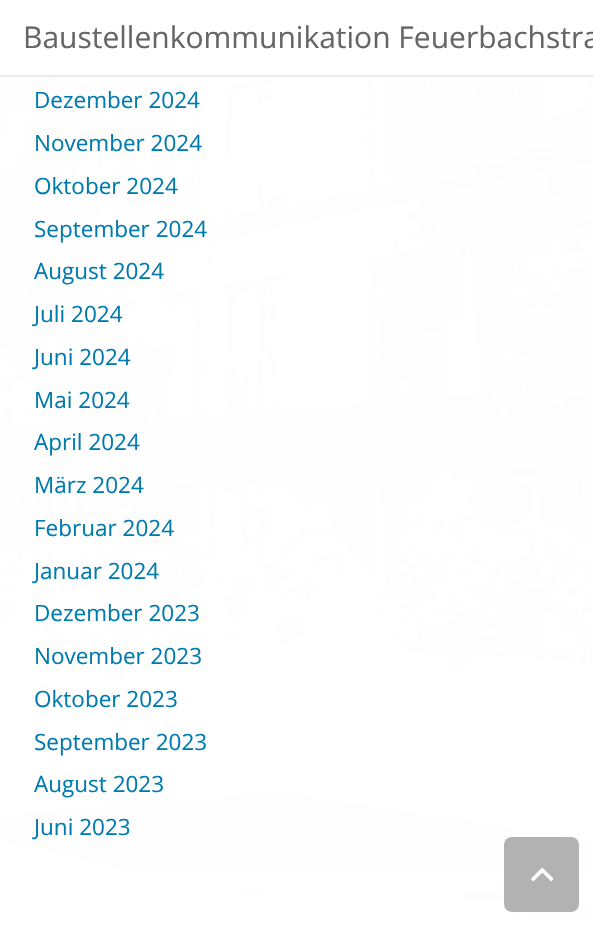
void draw(SkCanvas* canvas) {
    SkPaint paint;
    paint.setAntiAlias(true);
    canvas->clear(0xFFFFFFFF);
    canvas->drawImageRect(SkImages::DeferredFromEncodedData(SkData::MakeFromFileName("img1.png")), SkRect::MakeXYWH(0, 77, 593, 849), SkSamplingOptions());
    paint.setColor(0xFFEAEAEA);
    canvas->drawRect(SkRect::MakeXYWH(0, 75, 593, 2), paint);
    SkFont font1(fontMgr->matchFamilyStyle("Open Sans", SkFontStyle::Normal()), 30);
    font1.setSubpixel(true);
    paint.setColor(0xFF666666);
    canvas->drawString("Baustellenkommunikation Feuerbachstra", 23, 48, font1, paint);
    SkFont font2(fontMgr->matchFamilyStyle("Open Sans", SkFontStyle::Normal()), 22.5f);
    font2.setSubpixel(true);
    paint.setColor(0xFF007BAF);
    canvas->drawString("Dezember 2024", 34, 108, font2, paint);
    canvas->drawString("November 2024", 34, 151, font2, paint);
    canvas->drawString("Oktober 2024", 34, 194, font2, paint);
    canvas->drawString("September 2024", 34, 237, font2, paint);
    canvas->drawString("August 2024", 34, 279, font2, paint);
    canvas->drawString("Juli 2024", 34, 322, font2, paint);
    canvas->drawString("Juni 2024", 34, 365, font2, paint);
    canvas->drawString("Mai 2024", 34, 408, font2, paint);
    canvas->drawString("April 2024", 34, 450, font2, paint);
    canvas->drawString("März 2024", 34, 493, font2, paint);
    canvas->drawString("Februar 2024", 34, 536, font2, paint);
    canvas->drawString("Januar 2024", 34, 579, font2, paint);
    canvas->drawString("Dezember 2023", 34, 621, font2, paint);
    canvas->drawString("November 2023", 34, 664, font2, paint);
    canvas->drawString("Oktober 2023", 34, 707, font2, paint);
    canvas->drawString("September 2023", 34, 750, font2, paint);
    canvas->drawString("August 2023", 34, 792, font2, paint);
    canvas->drawString("Juni 2023", 34, 835, font2, paint);
    paint.setColor(0xE6FFFFFF);
    canvas->drawRect(SkRect::MakeXYWH(0, 876, 593, 50), paint);
    paint.setColor(0xFFB2B2B2);
    canvas->drawRoundRect(SkRect::MakeXYWH(504, 837, 75, 75), 8, 8, paint);
    canvas->drawImageRect(SkImages::DeferredFromEncodedData(SkData::MakeFromFileName("img2.png")), SkRect::MakeXYWH(531, 867, 23, 15), SkSamplingOptions());
}
